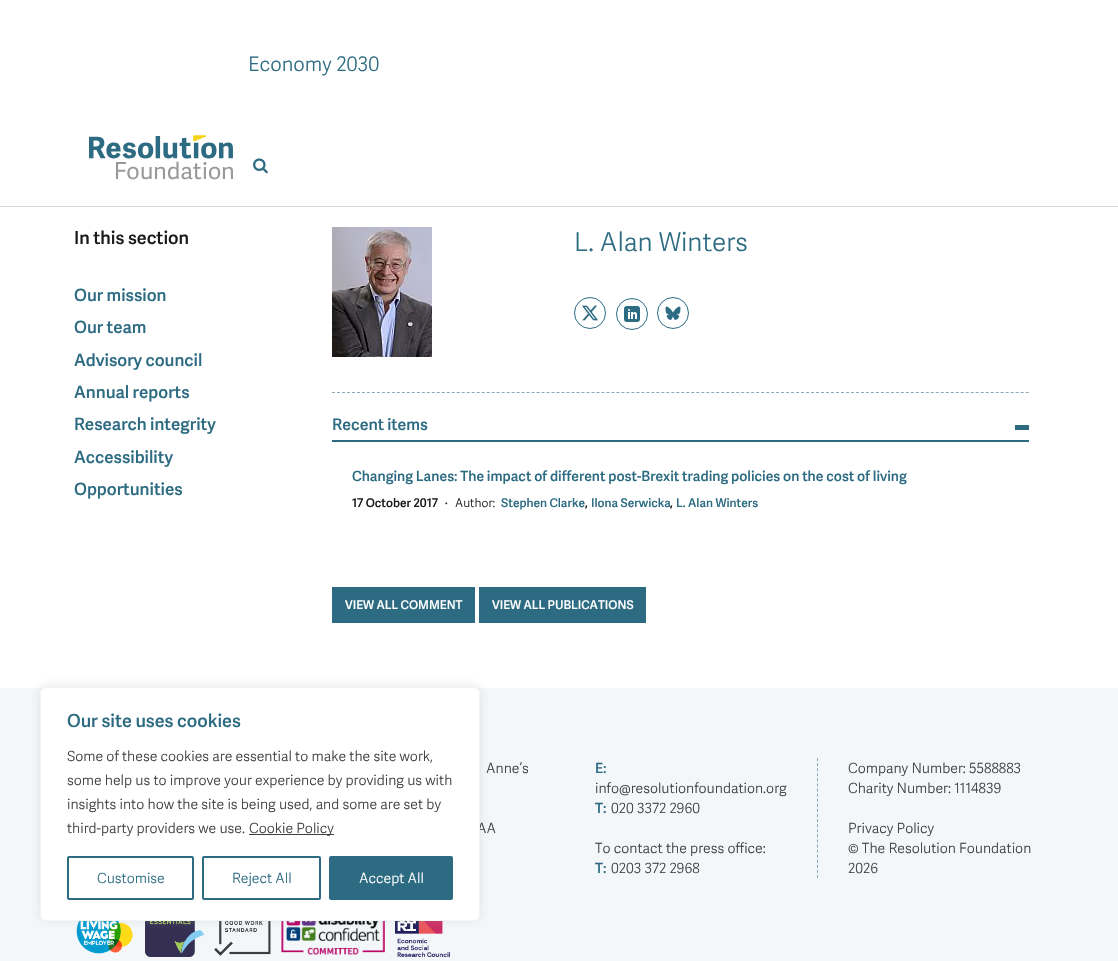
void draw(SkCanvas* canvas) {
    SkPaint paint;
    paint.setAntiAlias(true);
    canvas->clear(0xFFFFFFFF);
    paint.setColor(0xFFD9D9D9);
    canvas->drawRect(SkRect::MakeXYWH(0, 206, 1118, 1), paint);
    SkFont font1(fontMgr->matchFamilyStyle("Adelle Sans", SkFontStyle(300, SkFontStyle::kNormal_Width, SkFontStyle::kUpright_Slant)), 20);
    font1.setSubpixel(true);
    paint.setColor(0xFF2C6B82);
    canvas->drawString("Economy 2030", 248, 71, font1, paint);
    canvas->drawImageRect(SkImages::DeferredFromEncodedData(SkData::MakeFromFileName("img1.png")), SkRect::MakeXYWH(253, 158, 15, 16), SkSamplingOptions());
    canvas->drawImageRect(SkImages::DeferredFromEncodedData(SkData::MakeFromFileName("img2.png")), SkRect::MakeXYWH(89, 135, 144, 45), SkSamplingOptions());
    SkFont font2(fontMgr->matchFamilyStyle("Adelle Sans", SkFontStyle(600, SkFontStyle::kNormal_Width, SkFontStyle::kUpright_Slant)), 18);
    font2.setSubpixel(true);
    paint.setColor(0xFF1B1B1B);
    canvas->drawString("In this section", 74, 244, font2, paint);
    SkFont font3(fontMgr->matchFamilyStyle("Adelle Sans", SkFontStyle(600, SkFontStyle::kNormal_Width, SkFontStyle::kUpright_Slant)), 17);
    font3.setSubpixel(true);
    paint.setColor(0xFF2C6B82);
    canvas->drawString("Our mission", 74, 301, font3, paint);
    canvas->drawString("Our team", 74, 333, font3, paint);
    canvas->drawString("Advisory council", 74, 366, font3, paint);
    canvas->drawString("Annual reports", 74, 398, font3, paint);
    canvas->drawString("Research integrity", 74, 430, font3, paint);
    canvas->drawString("Accessibility", 74, 463, font3, paint);
    canvas->drawString("Opportunities", 74, 495, font3, paint);
    canvas->drawImageRect(SkImages::DeferredFromEncodedData(SkData::MakeFromFileName("img3.png")), SkRect::MakeXYWH(332, 227, 100, 130), SkSamplingOptions());
    SkFont font4(fontMgr->matchFamilyStyle("Adelle Sans", SkFontStyle(300, SkFontStyle::kNormal_Width, SkFontStyle::kUpright_Slant)), 26);
    font4.setSubpixel(true);
    canvas->drawString("L. Alan Winters", 574, 251, font4, paint);
    paint.setStyle(SkPaint::kStroke_Style);
    paint.setStrokeWidth(1);
    canvas->drawCircle(590, 313, 15.5f, paint);
    canvas->drawImageRect(SkImages::DeferredFromEncodedData(SkData::MakeFromFileName("img4.png")), SkRect::MakeXYWH(582, 305, 16, 16), SkSamplingOptions());
    canvas->drawCircle(632, 314, 15.5f, paint);
    canvas->drawImageRect(SkImages::DeferredFromEncodedData(SkData::MakeFromFileName("img5.png")), SkRect::MakeXYWH(624, 306, 16, 16), SkSamplingOptions());
    canvas->drawCircle(673, 313, 15.5f, paint);
    canvas->drawImageRect(SkImages::DeferredFromEncodedData(SkData::MakeFromFileName("img6.png")), SkRect::MakeXYWH(665, 306, 16, 14), SkSamplingOptions());
    paint.setColor(0xFF8CA7B8);
    paint.setPathEffect(SkDashPathEffect::Make({{3, 1.99f}}, 0));
    canvas->drawPath(SkPathBuilder().moveTo(332, 392.5f).lineTo(1029, 392.5f).detach(), paint);
    paint.setPathEffect(nullptr);
    paint.setStyle(SkPaint::kFill_Style);
    paint.setColor(0xFF2C6B82);
    canvas->drawRect(SkRect::MakeXYWH(332, 440, 697, 2), paint);
    SkFont font5(fontMgr->matchFamilyStyle("Adelle Sans", SkFontStyle(600, SkFontStyle::kNormal_Width, SkFontStyle::kUpright_Slant)), 16);
    font5.setSubpixel(true);
    canvas->drawString("Recent items", 332, 430, font5, paint);
    canvas->drawRect(SkRect::MakeXYWH(1015, 425, 14, 5), paint);
    SkFont font6(fontMgr->matchFamilyStyle("Adelle Sans", SkFontStyle(600, SkFontStyle::kNormal_Width, SkFontStyle::kUpright_Slant)), 14);
    font6.setSubpixel(true);
    canvas->drawString("Changing Lanes: The impact of different post-Brexit trading policies on the cost of living", 352, 481, font6, paint);
    SkFont font7(fontMgr->matchFamilyStyle("Adelle Sans", SkFontStyle(600, SkFontStyle::kNormal_Width, SkFontStyle::kUpright_Slant)), 12);
    font7.setSubpixel(true);
    paint.setColor(0xFF1B1B1B);
    canvas->drawString("17 October 2017", 352, 507, font7, paint);
    canvas->drawString("·", 445, 507, font7, paint);
    SkFont font8(fontMgr->matchFamilyStyle("Adelle Sans", SkFontStyle(300, SkFontStyle::kNormal_Width, SkFontStyle::kUpright_Slant)), 12);
    font8.setSubpixel(true);
    canvas->drawString("Author:", 455, 507, font8, paint);
    paint.setColor(0xFF2C6B82);
    canvas->drawString("Stephen Clarke", 501, 507, font7, paint);
    paint.setColor(0xFF1B1B1B);
    canvas->drawString(",", 585, 507, font7, paint);
    paint.setColor(0xFF2C6B82);
    canvas->drawString("Ilona Serwicka", 591, 507, font7, paint);
    paint.setColor(0xFF1B1B1B);
    canvas->drawString(",", 670, 507, font7, paint);
    paint.setColor(0xFF2C6B82);
    canvas->drawString("L. Alan Winters", 676, 507, font7, paint);
    canvas->drawRect(SkRect::MakeXYWH(332, 587, 143, 36), paint);
    paint.setColor(0xFFFFFFFF);
    canvas->drawString("VIEW ALL COMMENT", 345, 609, font7, paint);
    paint.setColor(0xFF2C6B82);
    canvas->drawRect(SkRect::MakeXYWH(479, 587, 167, 36), paint);
    paint.setColor(0xFFFFFFFF);
    canvas->drawString("VIEW ALL PUBLICATIONS", 492, 609, font7, paint);
    paint.setColor(0xFFF4F7F9);
    canvas->drawRect(SkRect::MakeXYWH(0, 688, 1118, 273), paint);
    canvas->drawImageRect(SkImages::DeferredFromEncodedData(SkData::MakeFromFileName("img7.png")), SkRect::MakeXYWH(76, 921, 57, 33), SkSamplingOptions());
    canvas->drawImageRect(SkImages::DeferredFromEncodedData(SkData::MakeFromFileName("img8.png")), SkRect::MakeXYWH(145, 921, 59, 36), SkSamplingOptions());
    canvas->drawImageRect(SkImages::DeferredFromEncodedData(SkData::MakeFromFileName("img9.png")), SkRect::MakeXYWH(214, 921, 57, 35), SkSamplingOptions());
    canvas->drawImageRect(SkImages::DeferredFromEncodedData(SkData::MakeFromFileName("img10.png")), SkRect::MakeXYWH(281, 921, 104, 34), SkSamplingOptions());
    canvas->drawImageRect(SkImages::DeferredFromEncodedData(SkData::MakeFromFileName("img11.png")), SkRect::MakeXYWH(395, 921, 55, 36), SkSamplingOptions());
    paint.setColor(0x4DACABAB);
    paint.setMaskFilter(SkMaskFilter::MakeBlur(kNormal_SkBlurStyle, 5));
    canvas->drawRoundRect(SkRect::MakeXYWH(40, 686, 440, 234), 6, 6, paint);
    paint.setMaskFilter(nullptr);
    SkFont font9(fontMgr->matchFamilyStyle("Adelle Sans", SkFontStyle(300, SkFontStyle::kNormal_Width, SkFontStyle::kUpright_Slant)), 14);
    font9.setSubpixel(true);
    paint.setColor(0xFF404040);
    canvas->drawString("AA", 477, 833, font9, paint);
    paint.setColor(0xFFFFFFFF);
    canvas->drawRoundRect(SkRect::MakeXYWH(40.5f, 687.5f, 439, 233), 5.5f, 5.5f, paint);
    paint.setStyle(SkPaint::kStroke_Style);
    paint.setColor(0xFFF4F4F4);
    canvas->drawRoundRect(SkRect::MakeXYWH(40.5f, 687.5f, 439, 233), 5.5f, 5.5f, paint);
    paint.setStyle(SkPaint::kFill_Style);
    paint.setColor(0xFF2C6B82);
    canvas->drawString("Our site uses cookies", 67, 727, font2, paint);
    paint.setColor(0xFF404040);
    canvas->drawString("Some of these cookies are essential to make the site work,", 67, 761, font9, paint);
    canvas->drawString("some help us to improve your experience by providing us with", 67, 785, font9, paint);
    canvas->drawString("insights into how the site is being used, and some are set by", 67, 809, font9, paint);
    canvas->drawString("third-party providers we use.", 67, 833, font9, paint);
    canvas->drawRect(SkRect::MakeXYWH(249, 834, 85, 1), paint);
    canvas->drawString("Cookie Policy", 249, 833, font9, paint);
    paint.setStyle(SkPaint::kStroke_Style);
    paint.setStrokeWidth(2);
    paint.setColor(0xFF2C6B82);
    canvas->drawRoundRect(SkRect::MakeXYWH(68, 857, 125, 42), 1, 1, paint);
    paint.setStyle(SkPaint::kFill_Style);
    canvas->drawString("Customise", 97, 883, font9, paint);
    paint.setStyle(SkPaint::kStroke_Style);
    canvas->drawRoundRect(SkRect::MakeXYWH(203, 857, 117, 42), 1, 1, paint);
    paint.setStyle(SkPaint::kFill_Style);
    canvas->drawString("Reject All", 232, 883, font9, paint);
    canvas->drawRoundRect(SkRect::MakeXYWH(330, 857, 122, 42), 1, 1, paint);
    paint.setStyle(SkPaint::kStroke_Style);
    canvas->drawRoundRect(SkRect::MakeXYWH(330, 857, 122, 42), 1, 1, paint);
    paint.setStyle(SkPaint::kFill_Style);
    paint.setColor(0xFFFFFFFF);
    canvas->drawString("Accept All", 359, 883, font9, paint);
    paint.setStyle(SkPaint::kStroke_Style);
    paint.setStrokeWidth(1);
    paint.setColor(0xFF8CA7B8);
    paint.setPathEffect(SkDashPathEffect::Make({{3, 2.09f}}, 0));
    canvas->drawPath(SkPathBuilder().moveTo(817.5f, 758).lineTo(817.5f, 878).detach(), paint);
    paint.setPathEffect(nullptr);
    paint.setStyle(SkPaint::kFill_Style);
    paint.setColor(0xFF404040);
    canvas->drawString("Anne’s", 486, 773, font9, paint);
    paint.setColor(0xFF2C6B82);
    canvas->drawString("E:", 595, 773, font6, paint);
    paint.setColor(0xFF404040);
    canvas->drawString("info@resolutionfoundation.org", 595, 793, font9, paint);
    paint.setColor(0xFF2C6B82);
    canvas->drawString("T:", 595, 813, font6, paint);
    paint.setColor(0xFF404040);
    canvas->drawString("020 3372 2960", 611, 813, font9, paint);
    canvas->drawString("To contact the press office:", 595, 853, font9, paint);
    paint.setColor(0xFF2C6B82);
    canvas->drawString("T:", 595, 873, font6, paint);
    paint.setColor(0xFF404040);
    canvas->drawString("0203 372 2968", 611, 873, font9, paint);
    canvas->drawString("Company Number: 5588883", 848, 773, font9, paint);
    canvas->drawString("Charity Number: 1114839", 848, 793, font9, paint);
    canvas->drawString("Privacy Policy", 848, 833, font9, paint);
    canvas->drawString("© The Resolution Foundation", 848, 853, font9, paint);
    canvas->drawString("2026", 848, 873, font9, paint);
}
